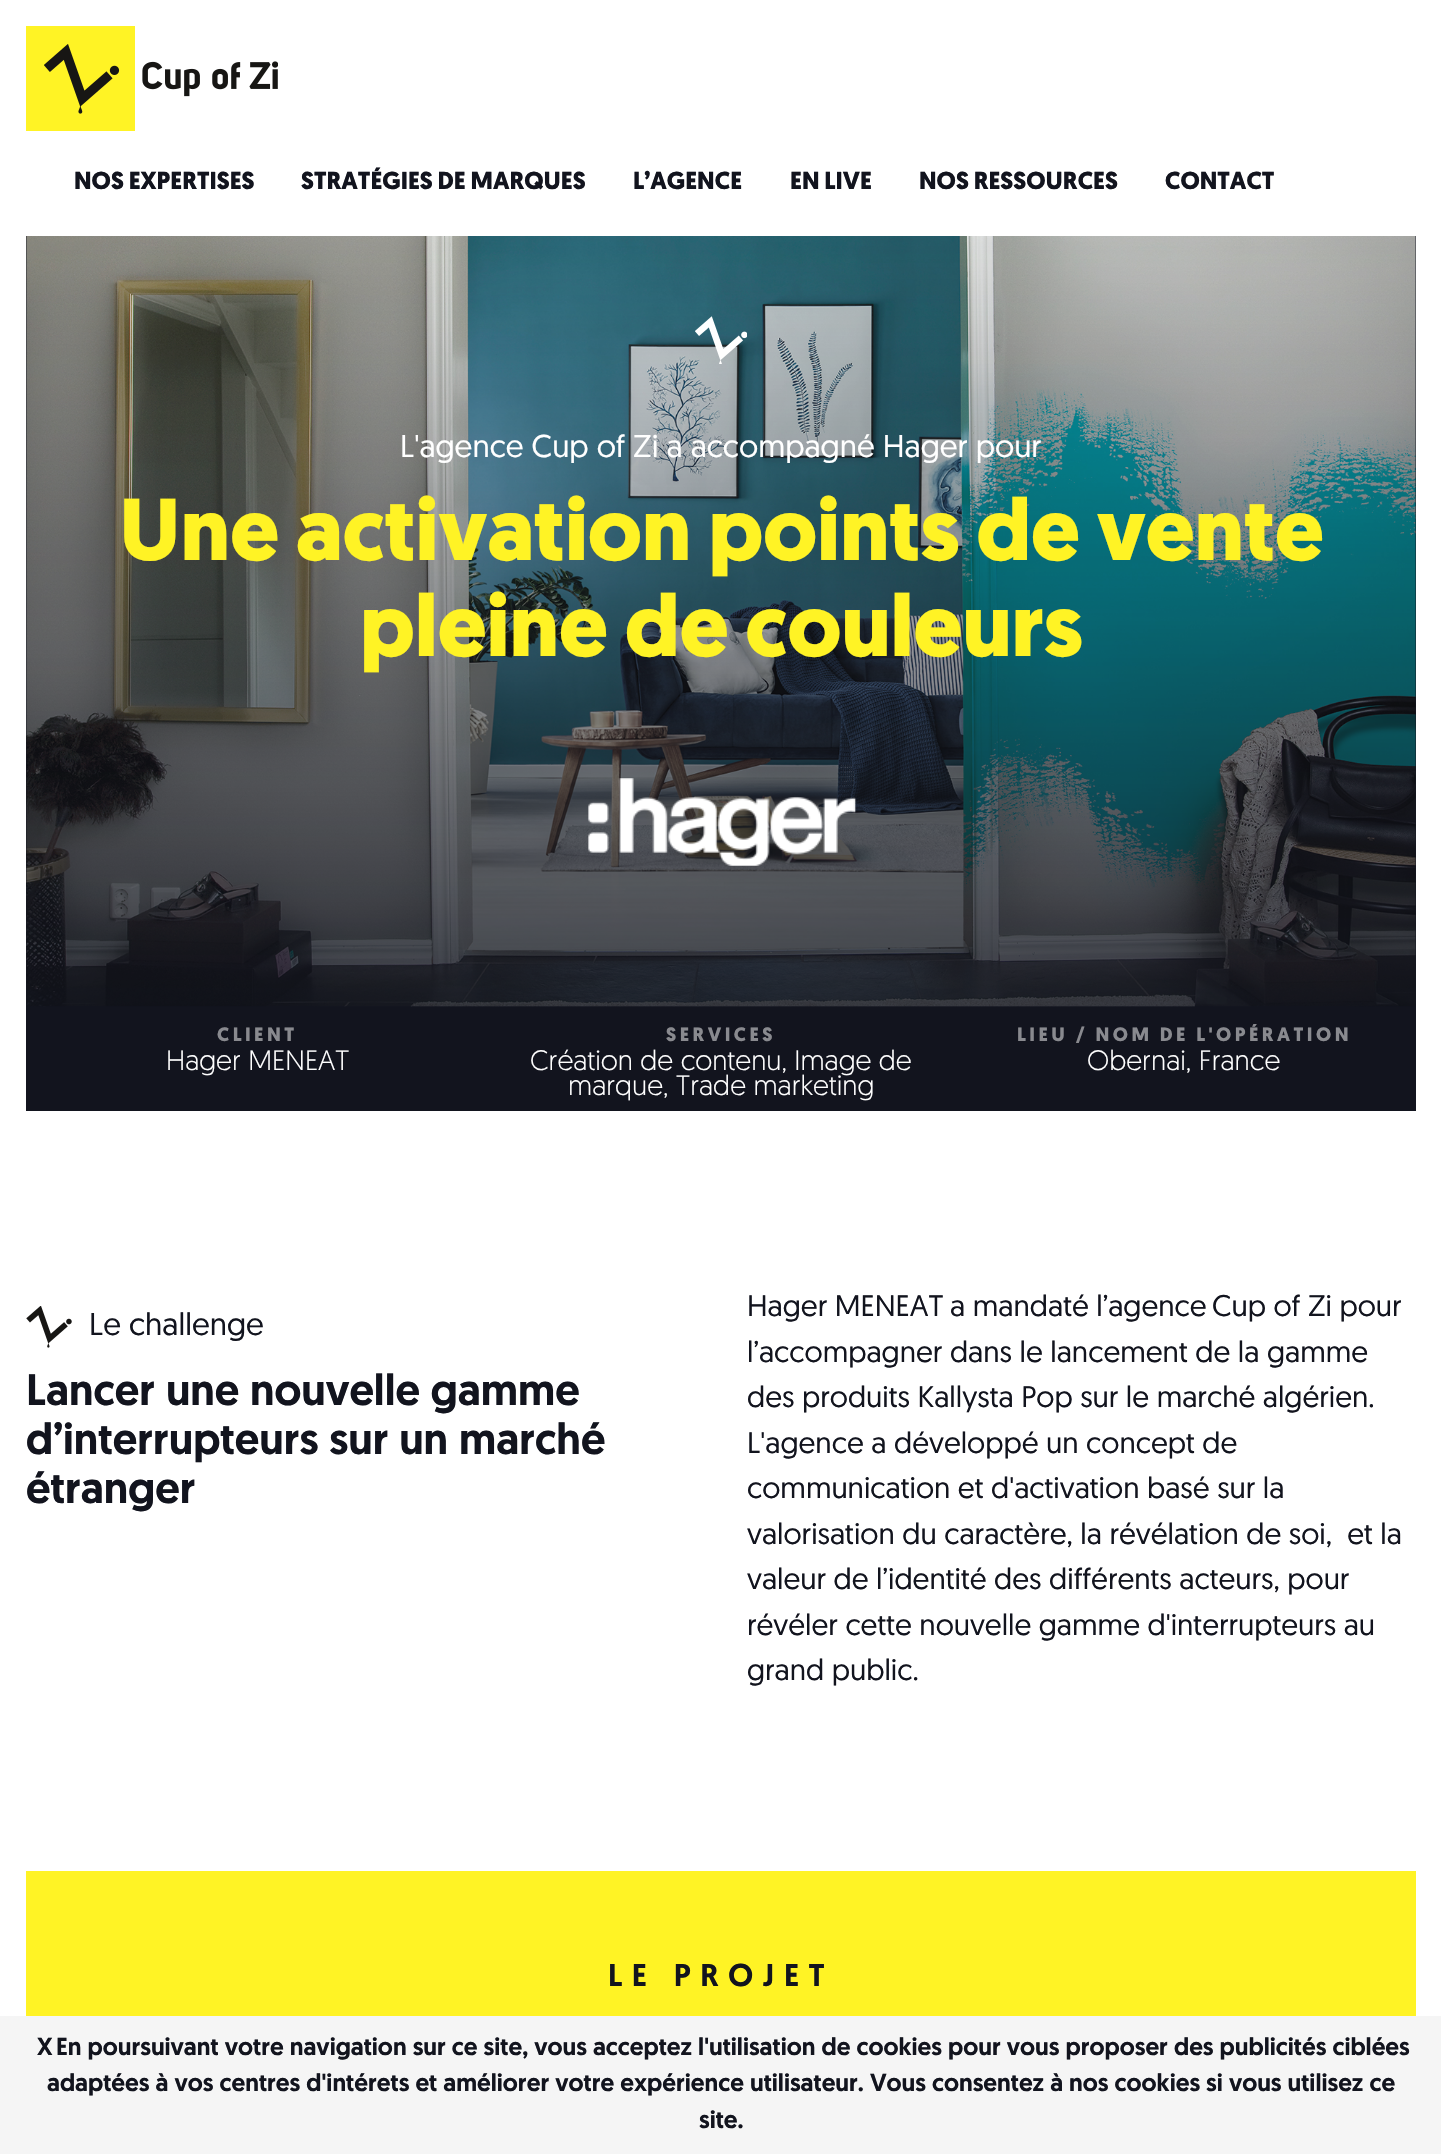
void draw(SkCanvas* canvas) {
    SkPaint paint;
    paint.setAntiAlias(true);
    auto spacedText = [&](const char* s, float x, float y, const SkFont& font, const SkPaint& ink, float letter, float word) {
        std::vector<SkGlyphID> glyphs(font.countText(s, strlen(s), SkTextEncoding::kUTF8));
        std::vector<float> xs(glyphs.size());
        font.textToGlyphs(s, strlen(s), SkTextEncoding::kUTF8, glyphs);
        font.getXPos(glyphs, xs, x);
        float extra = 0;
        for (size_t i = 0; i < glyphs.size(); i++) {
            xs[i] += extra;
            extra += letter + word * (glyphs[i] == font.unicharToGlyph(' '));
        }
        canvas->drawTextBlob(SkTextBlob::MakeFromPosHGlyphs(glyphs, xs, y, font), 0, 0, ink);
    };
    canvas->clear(0xFFFFFFFF);
    paint.setColor(0xFFFFF325);
    canvas->drawRect(SkRect::MakeXYWH(26, 26, 109, 105), paint);
    canvas->drawImageRect(SkImages::DeferredFromEncodedData(SkData::MakeFromFileName("img1.png")), SkRect::MakeXYWH(44, 44, 234, 70), SkSamplingOptions());
    SkFont font1(fontMgr->matchFamilyStyle("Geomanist", SkFontStyle::Bold()), 24.5f);
    font1.setSubpixel(true);
    paint.setColor(0xFF12141E);
    canvas->drawString("NOS EXPERTISES", 74, 189, font1, paint);
    canvas->drawString("STRATÉGIES DE MARQUES", 301, 189, font1, paint);
    canvas->drawString("L’AGENCE", 633, 189, font1, paint);
    canvas->drawString("EN LIVE", 790, 189, font1, paint);
    canvas->drawString("NOS RESSOURCES", 919, 189, font1, paint);
    canvas->drawString("CONTACT", 1165, 189, font1, paint);
    canvas->drawRect(SkRect::MakeXYWH(26, 236, 1390, 875), paint);
    canvas->drawImageRect(SkImages::DeferredFromEncodedData(SkData::MakeFromFileName("img2.png")), SkRect::MakeXYWH(26, 236, 1390, 771), SkSamplingOptions());
    {
        const SkColor colors[] = {0x0012141E, 0xCC12141E};
        const float stops[] = {0, 1};
        const SkPoint ends[] = {{721, 175}, {721, 1006}};
        paint.setShader(SkGradientShader::MakeLinear(ends, colors, stops, 2, SkTileMode::kClamp));
        paint.setAlpha(255);
    }
    canvas->drawRect(SkRect::MakeXYWH(26, 236, 1390, 770), paint);
    canvas->drawImageRect(SkImages::DeferredFromEncodedData(SkData::MakeFromFileName("img3.png")), SkRect::MakeXYWH(695, 316, 52, 48), SkSamplingOptions());
    SkFont font2(fontMgr->matchFamilyStyle("Geomanist", SkFontStyle::Normal()), 31.5f);
    font2.setSubpixel(true);
    paint.setShader(nullptr);
    paint.setColor(0xFFFFFFFF);
    canvas->drawString("L'agence Cup of Zi a accompagné Hager pour", 400, 457, font2, paint);
    SkFont font3(fontMgr->matchFamilyStyle("Geomanist", SkFontStyle::Bold()), 87.5f);
    font3.setSubpixel(true);
    paint.setColor(0xFFFFF325);
    canvas->drawString("Une activation points de vente", 119, 560, font3, paint);
    canvas->drawString("pleine de couleurs", 360, 656, font3, paint);
    canvas->drawImageRect(SkImages::DeferredFromEncodedData(SkData::MakeFromFileName("img4.png")), SkRect::MakeXYWH(588, 778, 268, 88), SkSamplingOptions());
    SkFont font4(fontMgr->matchFamilyStyle("Geomanist", SkFontStyle::Bold()), 19.25f);
    font4.setSubpixel(true);
    paint.setColor(0xFF898A8F);
    spacedText("CLIENT", 217, 1041, font4, paint, 3.5f, 0);
    SkFont font5(fontMgr->matchFamilyStyle("Geomanist", SkFontStyle(300, SkFontStyle::kNormal_Width, SkFontStyle::kUpright_Slant)), 28);
    font5.setSubpixel(true);
    paint.setColor(0xFFFFFFFF);
    canvas->drawString("Hager MENEAT", 166, 1070, font5, paint);
    paint.setColor(0xFF898A8F);
    spacedText("SERVICES", 666, 1041, font4, paint, 3.5f, 0);
    paint.setColor(0xFFFFFFFF);
    canvas->drawString("Création de contenu, Image de", 530, 1070, font5, paint);
    canvas->drawString("marque, Trade marketing", 568, 1095, font5, paint);
    paint.setColor(0xFF898A8F);
    spacedText("LIEU / NOM DE L'OPÉRATION", 1017, 1041, font4, paint, 3.5f, 0);
    paint.setColor(0xFFFFFFFF);
    canvas->drawString("Obernai, France", 1087, 1070, font5, paint);
    canvas->drawImageRect(SkImages::DeferredFromEncodedData(SkData::MakeFromFileName("img5.png")), SkRect::MakeXYWH(26, 1306, 46, 42), SkSamplingOptions());
    paint.setColor(0xFF12141E);
    canvas->drawString("Le challenge", 89, 1335, font2, paint);
    SkFont font6(fontMgr->matchFamilyStyle("Geomanist", SkFontStyle(500, SkFontStyle::kNormal_Width, SkFontStyle::kUpright_Slant)), 43.75f);
    font6.setSubpixel(true);
    canvas->drawString("Lancer une nouvelle gamme", 26, 1405, font6, paint);
    canvas->drawString("d’interrupteurs sur un marché", 26, 1454, font6, paint);
    canvas->drawString("étranger", 26, 1503, font6, paint);
    SkFont font7(fontMgr->matchFamilyStyle("Geomanist", SkFontStyle::Normal()), 29.75f);
    font7.setSubpixel(true);
    canvas->drawString("Hager MENEAT", 747, 1316, font7, paint);
    canvas->drawString("a mandaté l’agence", 950, 1316, font7, paint);
    canvas->drawString("Cup of Zi pour", 1212, 1316, font7, paint);
    canvas->drawString("l’accompagner dans le lancement de la gamme", 747, 1362, font7, paint);
    canvas->drawString("des produits Kallysta Pop sur le marché algérien.", 747, 1407, font7, paint);
    canvas->drawString("L'agence a développé un concept de", 747, 1453, font7, paint);
    canvas->drawString("communication et d'activation basé sur la", 747, 1498, font7, paint);
    canvas->drawString("valorisation du caractère, la révélation de soi,  et la", 747, 1544, font7, paint);
    canvas->drawString("valeur de l’identité des différents acteurs, pour", 747, 1589, font7, paint);
    canvas->drawString("révéler cette nouvelle gamme d'interrupteurs au", 747, 1635, font7, paint);
    canvas->drawString("grand public.", 747, 1680, font7, paint);
    paint.setColor(0xFFFFF325);
    canvas->drawRect(SkRect::MakeXYWH(26, 1871, 1390, 145), paint);
    SkFont font8(fontMgr->matchFamilyStyle("Geomanist", SkFontStyle(500, SkFontStyle::kNormal_Width, SkFontStyle::kUpright_Slant)), 31.5f);
    font8.setSubpixel(true);
    paint.setColor(0xFF12141E);
    spacedText("LE PROJET", 608, 1986, font8, paint, 9.5f, 0);
    paint.setColor(0xFFF5F5F5);
    canvas->drawRect(SkRect::MakeXYWH(0, 2016, 1441, 138), paint);
    SkFont font9(fontMgr->matchFamilyStyle("Geomanist", SkFontStyle(500, SkFontStyle::kNormal_Width, SkFontStyle::kUpright_Slant)), 24.5f);
    font9.setSubpixel(true);
    paint.setColor(0xFF12141E);
    canvas->drawString("X", 37, 2055, font9, paint);
    canvas->drawString("En poursuivant votre navigation sur ce site, vous acceptez l'utilisation de cookies pour vous proposer des publicités ciblées", 56, 2055, font9, paint);
    canvas->drawString("adaptées à vos centres d'intérets et améliorer votre expérience utilisateur. Vous consentez à nos cookies si vous utilisez ce", 47, 2091, font9, paint);
    canvas->drawString("site.", 699, 2128, font9, paint);
}
